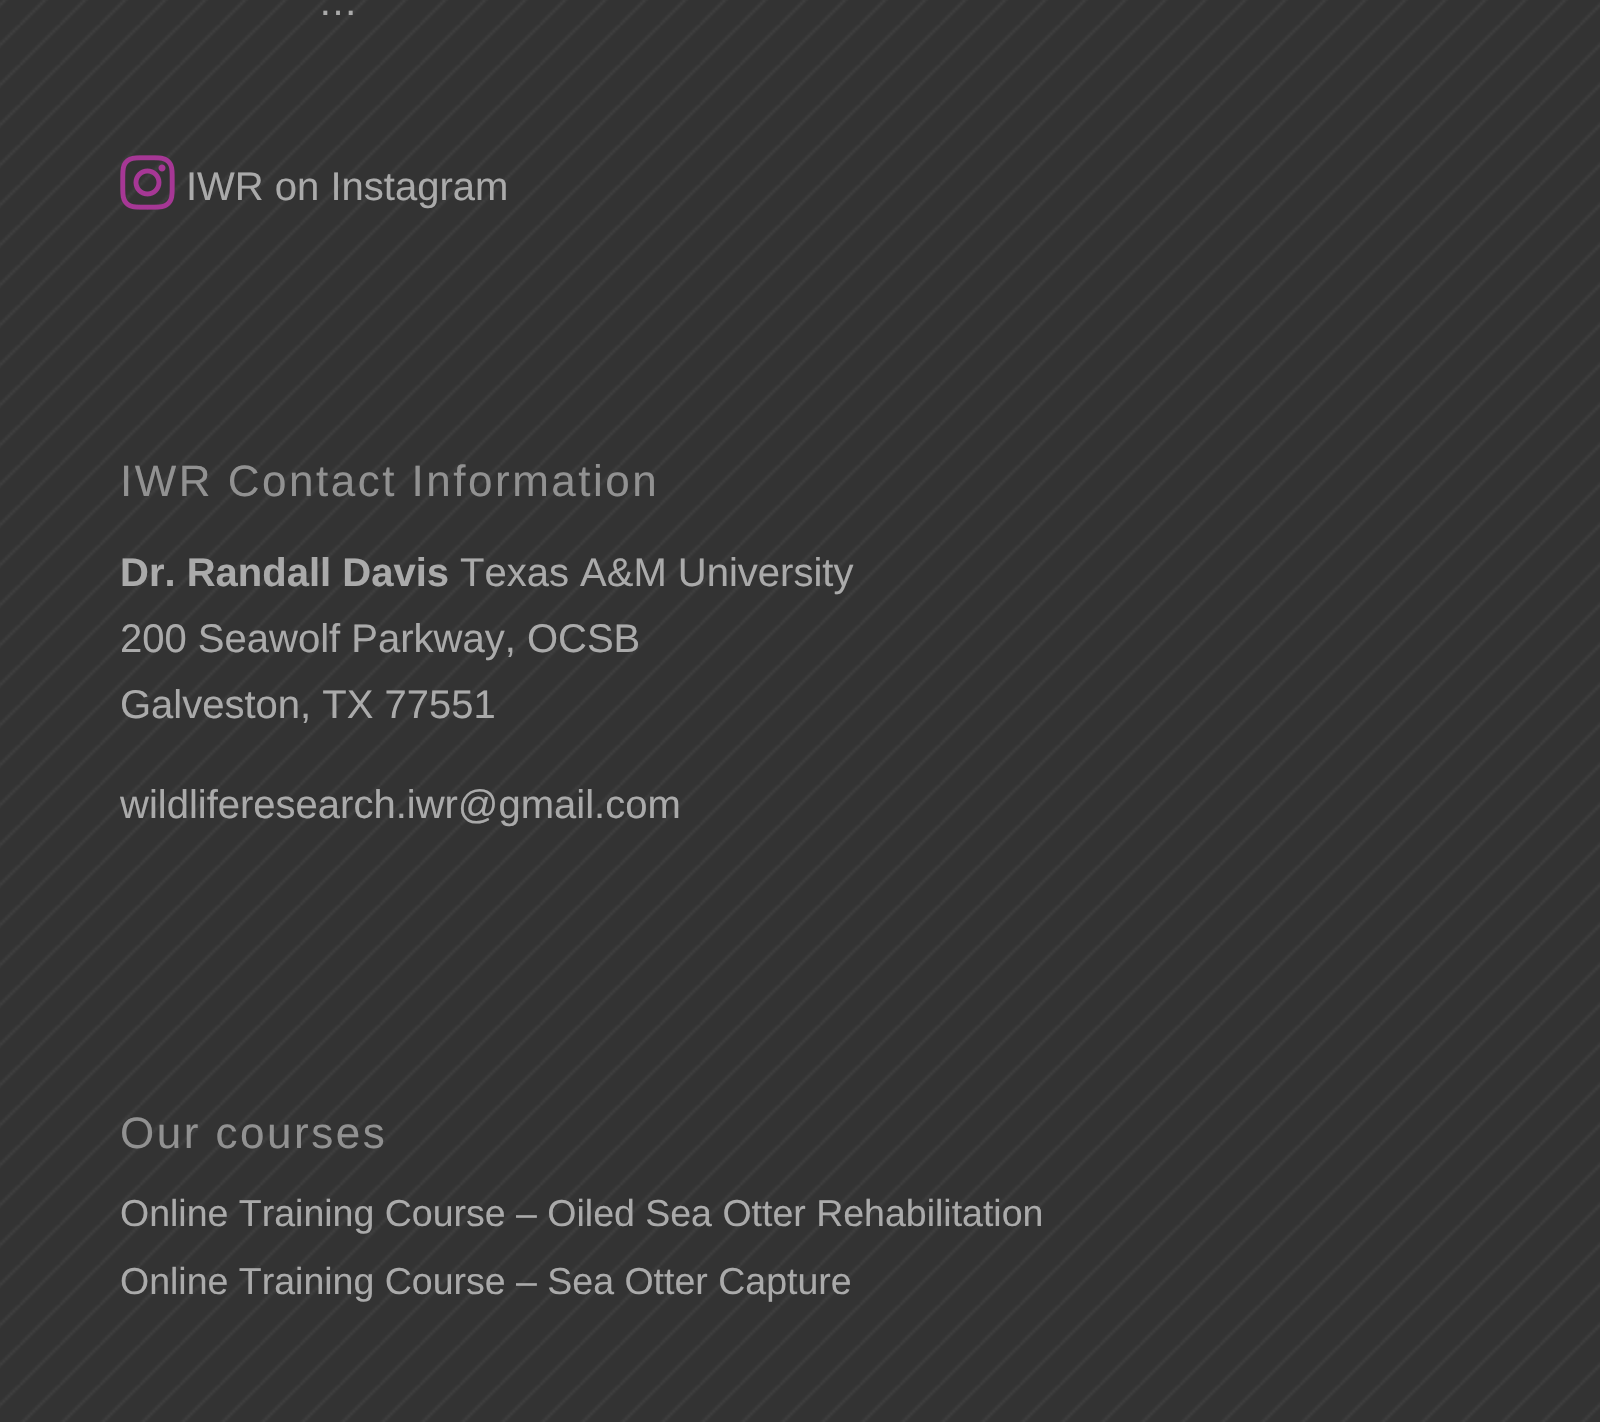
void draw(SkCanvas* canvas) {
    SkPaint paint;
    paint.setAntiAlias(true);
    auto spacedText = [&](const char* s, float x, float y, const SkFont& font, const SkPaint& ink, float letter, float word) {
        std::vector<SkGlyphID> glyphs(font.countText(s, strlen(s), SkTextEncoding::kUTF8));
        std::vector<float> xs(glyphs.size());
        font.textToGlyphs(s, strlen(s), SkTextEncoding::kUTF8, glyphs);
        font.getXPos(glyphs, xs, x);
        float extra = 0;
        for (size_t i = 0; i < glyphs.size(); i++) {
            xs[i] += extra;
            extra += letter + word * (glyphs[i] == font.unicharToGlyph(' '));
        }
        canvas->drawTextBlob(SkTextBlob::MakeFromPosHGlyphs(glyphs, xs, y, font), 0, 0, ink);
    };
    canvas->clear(0xFF333333);
    canvas->drawImageRect(SkImages::DeferredFromEncodedData(SkData::MakeFromFileName("img1.png")), SkRect::MakeXYWH(0, 0, 1600, 1422), SkSamplingOptions());
    SkFont font1(fontMgr->matchFamilyStyle("Liberation Sans", SkFontStyle::Normal()), 40);
    font1.setSubpixel(true);
    paint.setColor(0xFFAAAAAA);
    canvas->drawString("…", 318, 15, font1, paint);
    canvas->drawImageRect(SkImages::DeferredFromEncodedData(SkData::MakeFromFileName("img2.png")), SkRect::MakeXYWH(120, 155, 55, 55), SkSamplingOptions());
    canvas->drawString("IWR on Instagram", 186, 200, font1, paint);
    SkFont font2(fontMgr->matchFamilyStyle("Liberation Sans", SkFontStyle::Normal()), 44);
    font2.setSubpixel(true);
    paint.setColor(0xFF919191);
    spacedText("IWR Contact Information", 120, 496, font2, paint, 2.5f, 0);
    SkFont font3(fontMgr->matchFamilyStyle("Liberation Sans", SkFontStyle::Bold()), 40);
    font3.setSubpixel(true);
    paint.setColor(0xFFAAAAAA);
    canvas->drawString("Dr. Randall Davis", 120, 586, font3, paint);
    canvas->drawString("Texas A&M University", 460, 586, font1, paint);
    canvas->drawString("200 Seawolf Parkway, OCSB", 120, 652, font1, paint);
    canvas->drawString("Galveston, TX 77551", 120, 718, font1, paint);
    canvas->drawString("wildliferesearch.iwr@gmail.com", 120, 818, font1, paint);
    paint.setColor(0xFF919191);
    spacedText("Our courses", 120, 1148, font2, paint, 2.5f, 0);
    SkFont font4(fontMgr->matchFamilyStyle("Liberation Sans", SkFontStyle::Normal()), 37.5f);
    font4.setSubpixel(true);
    paint.setColor(0xFFAAAAAA);
    canvas->drawString("Online Training Course – Oiled Sea Otter Rehabilitation", 120, 1226, font4, paint);
    canvas->drawString("Online Training Course – Sea Otter Capture", 120, 1294, font4, paint);
}
